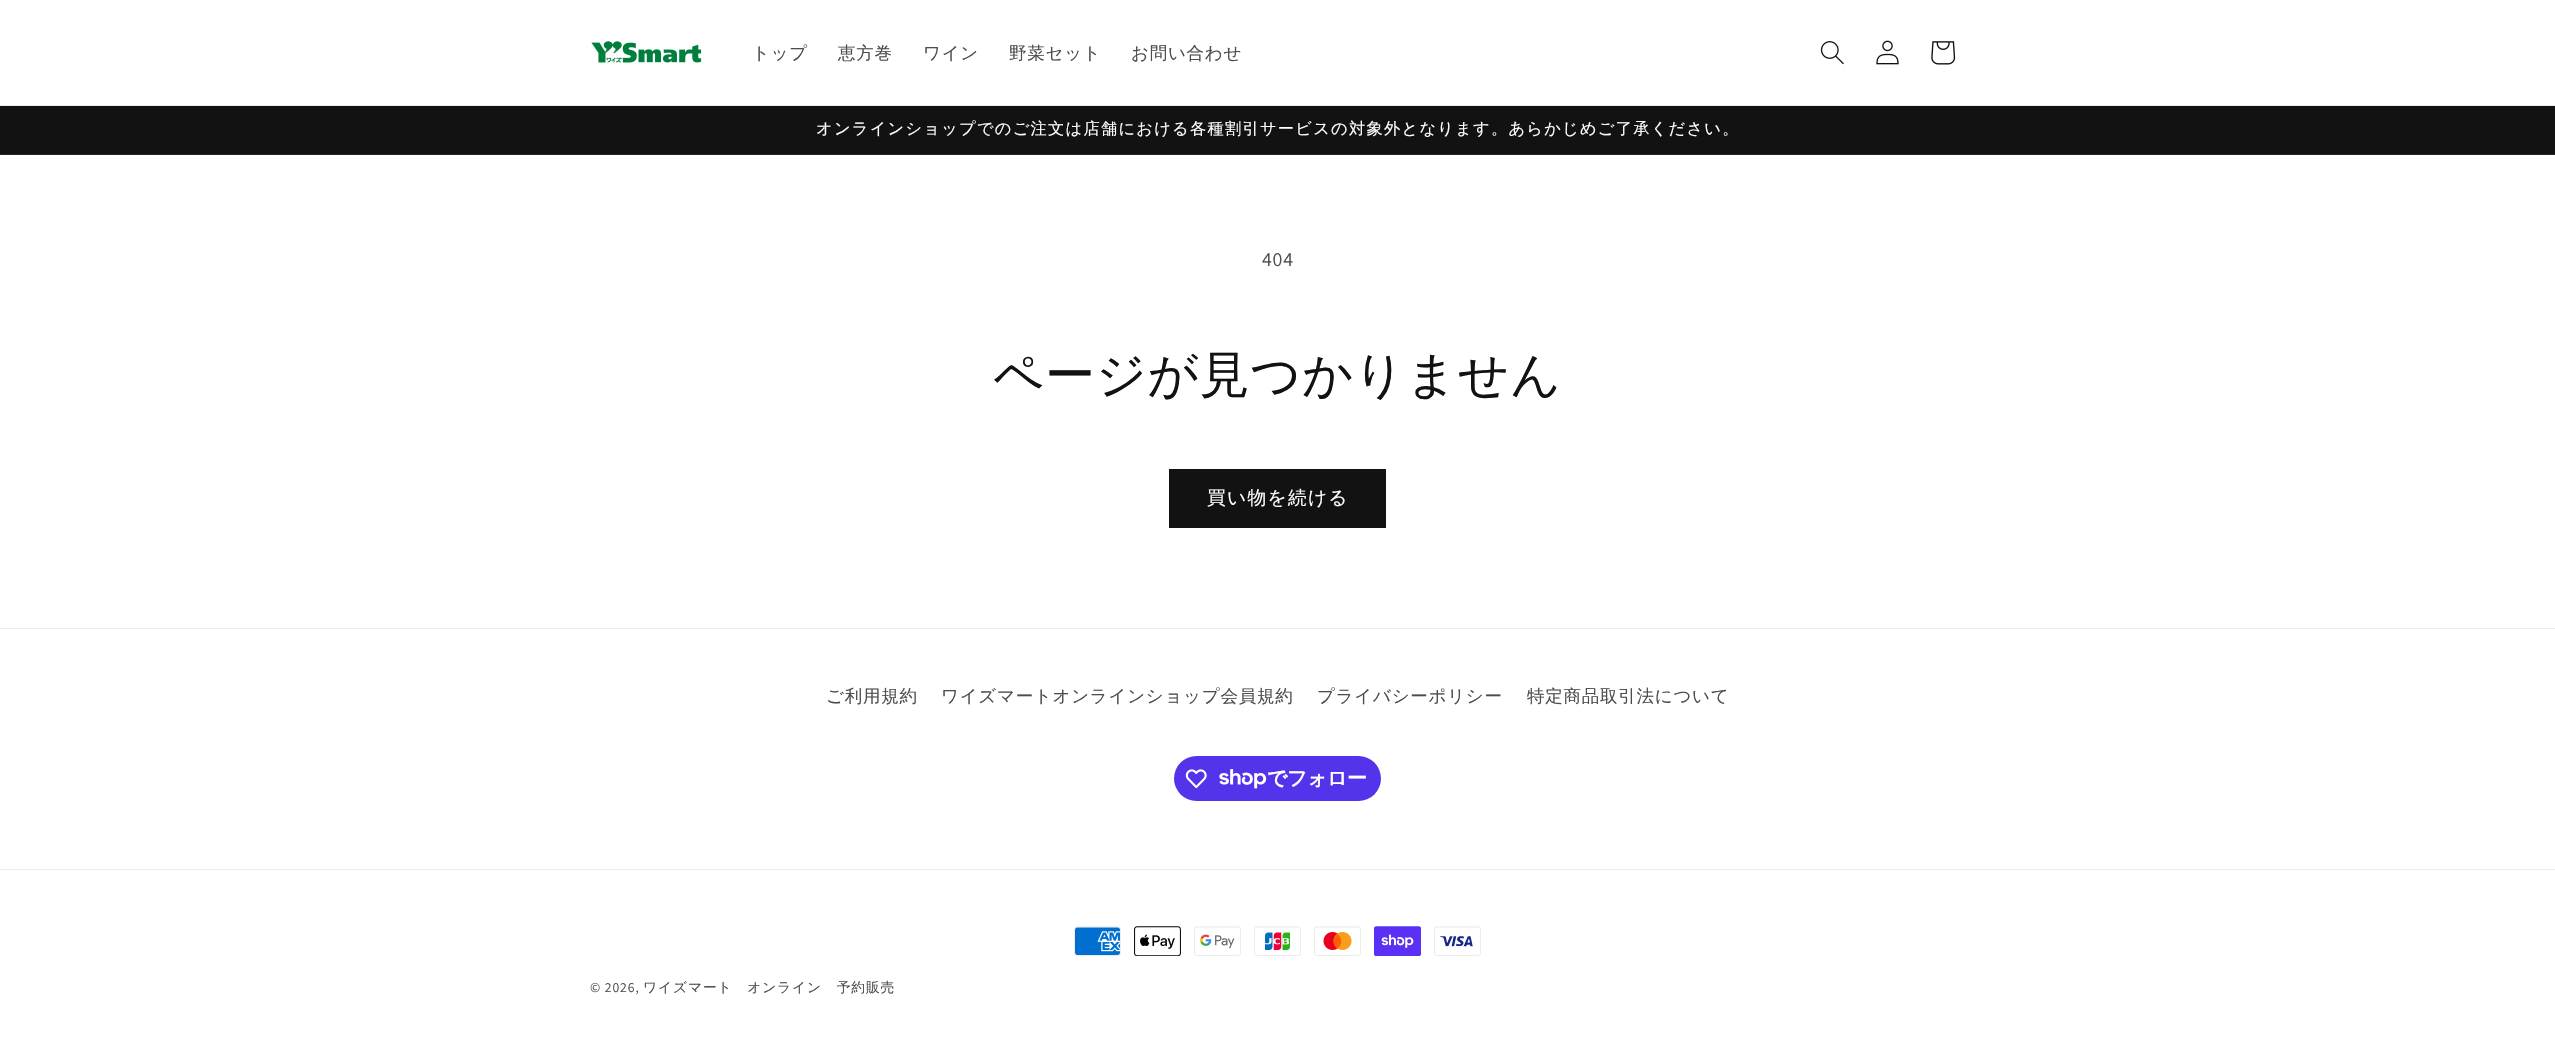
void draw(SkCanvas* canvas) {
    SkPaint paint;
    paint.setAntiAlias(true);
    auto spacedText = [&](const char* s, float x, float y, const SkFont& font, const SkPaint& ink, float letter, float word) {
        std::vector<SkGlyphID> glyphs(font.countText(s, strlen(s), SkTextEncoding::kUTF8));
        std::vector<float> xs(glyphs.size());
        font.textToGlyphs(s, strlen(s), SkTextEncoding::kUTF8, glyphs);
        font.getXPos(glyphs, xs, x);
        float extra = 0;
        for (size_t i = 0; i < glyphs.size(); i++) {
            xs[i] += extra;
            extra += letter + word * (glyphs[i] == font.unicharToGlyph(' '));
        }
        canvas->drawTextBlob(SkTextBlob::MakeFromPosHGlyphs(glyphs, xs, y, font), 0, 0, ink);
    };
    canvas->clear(0xFFFFFFFF);
    paint.setColor(0xFFECECEC);
    canvas->drawRect(SkRect::MakeXYWH(0, 105, 2555, 1), paint);
    canvas->drawImageRect(SkImages::DeferredFromEncodedData(SkData::MakeFromFileName("img1.png")), SkRect::MakeXYWH(591, 41, 111, 22), SkSamplingOptions());
    SkFont font1(fontMgr->matchFamilyStyle("WenQuanYi Zen Hei", SkFontStyle(500, SkFontStyle::kNormal_Width, SkFontStyle::kUpright_Slant)), 17.5f);
    font1.setSubpixel(true);
    paint.setColor(0xFF4D4D4D);
    spacedText("トップ", 752, 59, font1, paint, 0.75f, 0);
    spacedText("恵方巻", 838, 59, font1, paint, 0.75f, 0);
    spacedText("ワイン", 923, 59, font1, paint, 0.75f, 0);
    spacedText("野菜セット", 1009, 59, font1, paint, 0.75f, 0);
    spacedText("お問い合わせ", 1131, 59, font1, paint, 0.75f, 0);
    canvas->drawImageRect(SkImages::DeferredFromEncodedData(SkData::MakeFromFileName("img2.png")), SkRect::MakeXYWH(1820, 41, 24, 24), SkSamplingOptions());
    canvas->drawImageRect(SkImages::DeferredFromEncodedData(SkData::MakeFromFileName("img3.png")), SkRect::MakeXYWH(1876, 40, 23, 25), SkSamplingOptions());
    canvas->drawImageRect(SkImages::DeferredFromEncodedData(SkData::MakeFromFileName("img4.png")), SkRect::MakeXYWH(1931, 41, 25, 24), SkSamplingOptions());
    paint.setColor(0xFF121212);
    canvas->drawRect(SkRect::MakeXYWH(0, 106, 2555, 48), paint);
    paint.setColor(0xFF252525);
    canvas->drawRect(SkRect::MakeXYWH(0, 154, 2555, 1), paint);
    SkFont font2(fontMgr->matchFamilyStyle("WenQuanYi Zen Hei", SkFontStyle(500, SkFontStyle::kNormal_Width, SkFontStyle::kUpright_Slant)), 16.25f);
    font2.setSubpixel(true);
    paint.setColor(0xFFFFFFFF);
    spacedText("オンラインショップでのご注文は店舗における各種割引サービスの対象外となります。あらかじめご了承ください。", 816, 134, font2, paint, 1.25f, 0);
    SkFont font3(fontMgr->matchFamilyStyle("Assistant", SkFontStyle::Normal()), 20);
    font3.setSubpixel(true);
    paint.setColor(0xFF4D4D4D);
    spacedText("404", 1262, 266, font3, paint, 0.75f, 0);
    SkFont font4(fontMgr->matchFamilyStyle("WenQuanYi Zen Hei", SkFontStyle(500, SkFontStyle::kNormal_Width, SkFontStyle::kUpright_Slant)), 50);
    font4.setSubpixel(true);
    paint.setColor(0xFF121212);
    spacedText("ページが見つかりません", 993, 392, font4, paint, 0.75f, 0);
    canvas->drawRect(SkRect::MakeXYWH(1169, 469, 217, 59), paint);
    SkFont font5(fontMgr->matchFamilyStyle("WenQuanYi Zen Hei", SkFontStyle(500, SkFontStyle::kNormal_Width, SkFontStyle::kUpright_Slant)), 18.75f);
    font5.setSubpixel(true);
    paint.setColor(0xFFFFFFFF);
    spacedText("買い物を続ける", 1207, 504, font5, paint, 1.25f, 0);
    paint.setColor(0xFFECECEC);
    canvas->drawRect(SkRect::MakeXYWH(0, 628, 2555, 1), paint);
    paint.setColor(0xFF4D4D4D);
    spacedText("ご利用規約", 826, 702, font1, paint, 0.75f, 0);
    spacedText("ワイズマートオンラインショップ会員規約", 941, 702, font1, paint, 0.75f, 0);
    spacedText("プライバシーポリシー", 1317, 702, font1, paint, 0.75f, 0);
    spacedText("特定商品取引法について", 1527, 702, font1, paint, 0.75f, 0);
    paint.setColor(0xFF5433EB);
    canvas->drawRoundRect(SkRect::MakeXYWH(1174, 756, 207, 45), 22.5f, 22.5f, paint);
    canvas->drawImageRect(SkImages::DeferredFromEncodedData(SkData::MakeFromFileName("img5.png")), SkRect::MakeXYWH(1185, 769, 22, 20), SkSamplingOptions());
    canvas->drawImageRect(SkImages::DeferredFromEncodedData(SkData::MakeFromFileName("img6.png")), SkRect::MakeXYWH(1219, 769, 48, 20), SkSamplingOptions());
    SkFont font6(fontMgr->matchFamilyStyle("WenQuanYi Zen Hei", SkFontStyle::Bold()), 20);
    font6.setSubpixel(true);
    paint.setColor(0xFFFFFFFF);
    spacedText("でフォロー", 1267, 785, font6, paint, -0.5f, 0);
    paint.setColor(0xFFECECEC);
    canvas->drawRect(SkRect::MakeXYWH(0, 869, 2555, 1), paint);
    canvas->drawImageRect(SkImages::DeferredFromEncodedData(SkData::MakeFromFileName("img7.png")), SkRect::MakeXYWH(1074, 926, 47, 30), SkSamplingOptions());
    canvas->drawImageRect(SkImages::DeferredFromEncodedData(SkData::MakeFromFileName("img8.png")), SkRect::MakeXYWH(1134, 926, 47, 30), SkSamplingOptions());
    canvas->drawImageRect(SkImages::DeferredFromEncodedData(SkData::MakeFromFileName("img9.png")), SkRect::MakeXYWH(1194, 926, 47, 30), SkSamplingOptions());
    canvas->drawImageRect(SkImages::DeferredFromEncodedData(SkData::MakeFromFileName("img10.png")), SkRect::MakeXYWH(1254, 926, 47, 30), SkSamplingOptions());
    canvas->drawImageRect(SkImages::DeferredFromEncodedData(SkData::MakeFromFileName("img11.png")), SkRect::MakeXYWH(1314, 926, 47, 30), SkSamplingOptions());
    canvas->drawImageRect(SkImages::DeferredFromEncodedData(SkData::MakeFromFileName("img12.png")), SkRect::MakeXYWH(1374, 926, 47, 30), SkSamplingOptions());
    canvas->drawImageRect(SkImages::DeferredFromEncodedData(SkData::MakeFromFileName("img13.png")), SkRect::MakeXYWH(1434, 926, 47, 30), SkSamplingOptions());
    SkFont font7(fontMgr->matchFamilyStyle("Assistant", SkFontStyle::Normal()), 13.75f);
    font7.setSubpixel(true);
    paint.setColor(0xFF4D4D4D);
    spacedText("© 2026,", 590, 992, font7, paint, 0.9f, 0);
    SkFont font8(fontMgr->matchFamilyStyle("WenQuanYi Zen Hei", SkFontStyle(500, SkFontStyle::kNormal_Width, SkFontStyle::kUpright_Slant)), 13.75f);
    font8.setSubpixel(true);
    spacedText("ワイズマート　オンライン　予約販売", 643, 992, font8, paint, 0.9f, 0);
}
